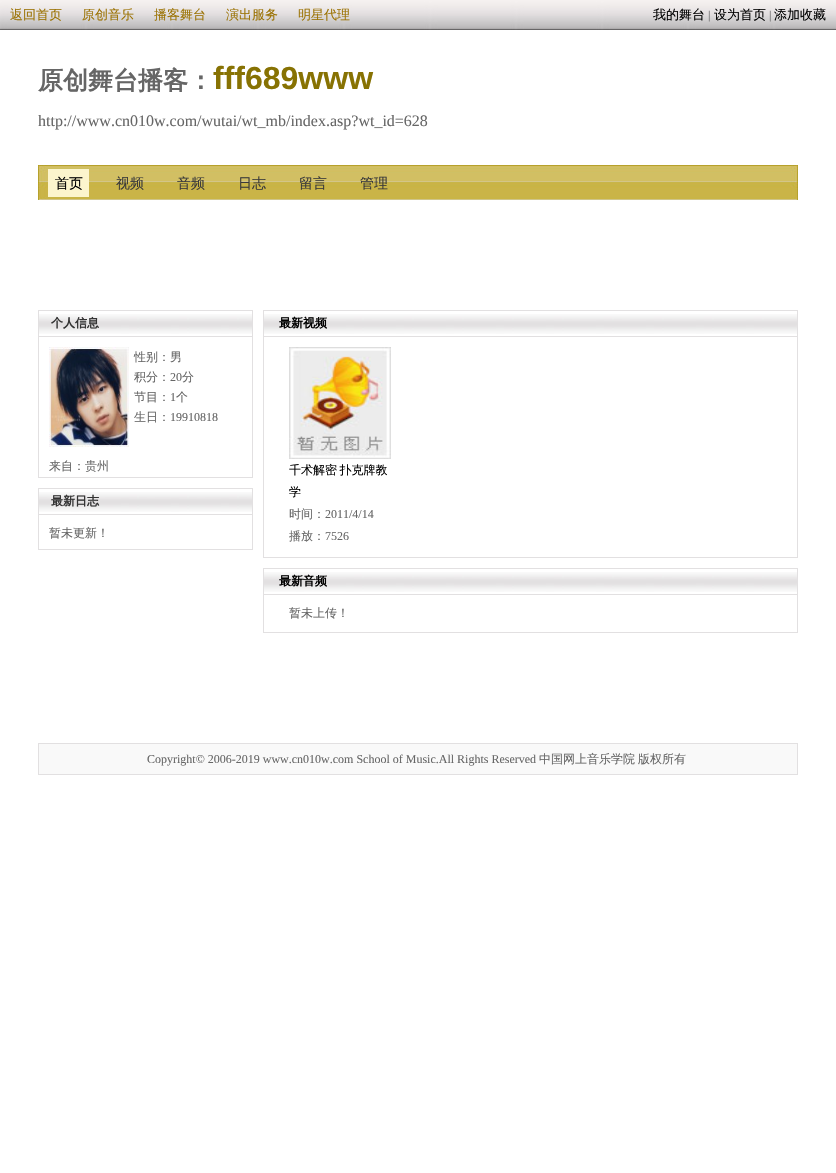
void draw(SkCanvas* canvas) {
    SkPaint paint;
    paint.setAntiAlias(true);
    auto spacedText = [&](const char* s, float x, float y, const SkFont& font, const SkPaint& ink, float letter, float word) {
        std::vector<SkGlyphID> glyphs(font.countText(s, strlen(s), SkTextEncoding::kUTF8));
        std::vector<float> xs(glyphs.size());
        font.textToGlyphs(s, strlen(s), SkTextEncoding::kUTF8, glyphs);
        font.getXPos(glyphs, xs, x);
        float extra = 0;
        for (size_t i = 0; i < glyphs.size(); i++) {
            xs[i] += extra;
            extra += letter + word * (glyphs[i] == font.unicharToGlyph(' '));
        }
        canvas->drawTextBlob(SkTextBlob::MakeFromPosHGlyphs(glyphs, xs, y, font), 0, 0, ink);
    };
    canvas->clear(0xFFFFFFFF);
    canvas->drawImageRect(SkImages::DeferredFromEncodedData(SkData::MakeFromFileName("img1.png")), SkRect::MakeXYWH(0, 0, 836, 30), SkSamplingOptions());
    SkFont font1(fontMgr->matchFamilyStyle("WenQuanYi Zen Hei", SkFontStyle(500, SkFontStyle::kNormal_Width, SkFontStyle::kUpright_Slant)), 13);
    font1.setSubpixel(true);
    paint.setColor(0xFF9B7202);
    canvas->drawString("返回首页", 10, 19, font1, paint);
    canvas->drawString("原创音乐", 82, 19, font1, paint);
    canvas->drawString("播客舞台", 154, 19, font1, paint);
    canvas->drawString("演出服务", 226, 19, font1, paint);
    canvas->drawString("明星代理", 298, 19, font1, paint);
    paint.setColor(0xFF000000);
    canvas->drawString("我的舞台", 653, 19, font1, paint);
    SkFont font2(fontMgr->matchFamilyStyle("Liberation Serif", SkFontStyle::Normal()), 12);
    font2.setSubpixel(true);
    paint.setColor(0xFF666666);
    canvas->drawString("|", 708, 19, font2, paint);
    paint.setColor(0xFF000000);
    canvas->drawString("设为首页", 714, 19, font1, paint);
    paint.setColor(0xFF666666);
    canvas->drawString("|", 769, 19, font2, paint);
    paint.setColor(0xFF000000);
    canvas->drawString("添加收藏", 774, 19, font1, paint);
    SkFont font3(fontMgr->matchFamilyStyle("WenQuanYi Zen Hei", SkFontStyle::Bold()), 25);
    font3.setSubpixel(true);
    paint.setColor(0xFF666666);
    canvas->drawString("原创舞台播客：", 38, 89, font3, paint);
    SkFont font4(fontMgr->matchFamilyStyle("Liberation Sans", SkFontStyle::Bold()), 32);
    font4.setSubpixel(true);
    paint.setColor(0xFF877203);
    canvas->drawString("fff689www", 213, 89, font4, paint);
    SkFont font5(fontMgr->matchFamilyStyle("Liberation Serif", SkFontStyle::Normal()), 16);
    font5.setSubpixel(true);
    paint.setColor(0xFF666666);
    canvas->drawString("http://www.cn010w.com/wutai/wt_mb/index.asp?wt_id=628", 38, 126, font5, paint);
    canvas->drawImageRect(SkImages::DeferredFromEncodedData(SkData::MakeFromFileName("img2.png")), SkRect::MakeXYWH(38, 165, 760, 35), SkSamplingOptions());
    paint.setColor(0xFFFCF5CD);
    canvas->drawRect(SkRect::MakeXYWH(48, 169, 41, 28), paint);
    SkFont font6(fontMgr->matchFamilyStyle("WenQuanYi Zen Hei", SkFontStyle(500, SkFontStyle::kNormal_Width, SkFontStyle::kUpright_Slant)), 14);
    font6.setSubpixel(true);
    paint.setColor(0xFF000000);
    canvas->drawString("首页", 55, 188, font6, paint);
    paint.setColor(0xFF3A3A3A);
    canvas->drawString("视频", 116, 188, font6, paint);
    canvas->drawString("音频", 177, 188, font6, paint);
    canvas->drawString("日志", 238, 188, font6, paint);
    canvas->drawString("留言", 299, 188, font6, paint);
    canvas->drawString("管理", 360, 188, font6, paint);
    paint.setStyle(SkPaint::kStroke_Style);
    paint.setStrokeWidth(1);
    paint.setColor(0xFFE2E0E1);
    canvas->drawRect(SkRect::MakeXYWH(38.5f, 310.5f, 214, 167), paint);
    canvas->drawImageRect(SkImages::DeferredFromEncodedData(SkData::MakeFromFileName("img3.png")), SkRect::MakeXYWH(39, 314, 213, 20), SkSamplingOptions());
    paint.setStyle(SkPaint::kFill_Style);
    canvas->drawRect(SkRect::MakeXYWH(39, 336, 213, 1), paint);
    SkFont font7(fontMgr->matchFamilyStyle("WenQuanYi Zen Hei", SkFontStyle::Bold()), 12);
    font7.setSubpixel(true);
    paint.setColor(0xFF333333);
    canvas->drawString("个人信息", 51, 327, font7, paint);
    canvas->drawImageRect(SkImages::DeferredFromEncodedData(SkData::MakeFromFileName("img4.png")), SkRect::MakeXYWH(49, 347, 80, 100), SkSamplingOptions());
    SkFont font8(fontMgr->matchFamilyStyle("WenQuanYi Zen Hei", SkFontStyle(500, SkFontStyle::kNormal_Width, SkFontStyle::kUpright_Slant)), 12);
    font8.setSubpixel(true);
    paint.setColor(0xFF666666);
    canvas->drawString("性别：男", 134, 361, font8, paint);
    canvas->drawString("积分：", 134, 381, font8, paint);
    canvas->drawString("20", 170, 381, font2, paint);
    canvas->drawString("分", 182, 381, font8, paint);
    canvas->drawString("节目：", 134, 401, font8, paint);
    canvas->drawString("1", 170, 401, font2, paint);
    canvas->drawString("个", 176, 401, font8, paint);
    canvas->drawString("生日：", 134, 421, font8, paint);
    canvas->drawString("19910818", 170, 421, font2, paint);
    canvas->drawString("来自：贵州", 49, 470, font8, paint);
    paint.setStyle(SkPaint::kStroke_Style);
    paint.setColor(0xFFE2E0E1);
    canvas->drawRect(SkRect::MakeXYWH(38.5f, 488.5f, 214, 61), paint);
    canvas->drawImageRect(SkImages::DeferredFromEncodedData(SkData::MakeFromFileName("img3.png")), SkRect::MakeXYWH(39, 492, 213, 20), SkSamplingOptions());
    paint.setStyle(SkPaint::kFill_Style);
    canvas->drawRect(SkRect::MakeXYWH(39, 514, 213, 1), paint);
    paint.setColor(0xFF333333);
    canvas->drawString("最新日志", 51, 505, font7, paint);
    paint.setColor(0xFF666666);
    canvas->drawString("暂未更新！", 49, 537, font8, paint);
    canvas->drawImageRect(SkImages::DeferredFromEncodedData(SkData::MakeFromFileName("img5.png")), SkRect::MakeXYWH(264, 314, 533, 20), SkSamplingOptions());
    paint.setStyle(SkPaint::kStroke_Style);
    paint.setColor(0xFFE2E0E1);
    canvas->drawRect(SkRect::MakeXYWH(263.5f, 310.5f, 534, 26), paint);
    paint.setStyle(SkPaint::kFill_Style);
    paint.setColor(0xFF000000);
    canvas->drawString("最新视频", 279, 327, font7, paint);
    paint.setColor(0xFFE2E0E1);
    canvas->drawRect(SkRect::MakeXYWH(797, 337, 1, 221), paint);
    canvas->drawRect(SkRect::MakeXYWH(263, 557, 535, 1), paint);
    canvas->drawRect(SkRect::MakeXYWH(263, 337, 1, 221), paint);
    canvas->drawImageRect(SkImages::DeferredFromEncodedData(SkData::MakeFromFileName("img6.png")), SkRect::MakeXYWH(289, 347, 102, 112), SkSamplingOptions());
    paint.setColor(0xFF000000);
    spacedText("千术解密 扑克牌教", 289, 474, font8, paint, 0, -1);
    canvas->drawString("学", 289, 496, font8, paint);
    paint.setColor(0xFF666666);
    canvas->drawString("时间：", 289, 518, font8, paint);
    canvas->drawString("2011/4/14", 325, 518, font2, paint);
    canvas->drawString("播放：", 289, 540, font8, paint);
    canvas->drawString("7526", 325, 540, font2, paint);
    canvas->drawImageRect(SkImages::DeferredFromEncodedData(SkData::MakeFromFileName("img5.png")), SkRect::MakeXYWH(264, 572, 533, 20), SkSamplingOptions());
    paint.setStyle(SkPaint::kStroke_Style);
    paint.setColor(0xFFE2E0E1);
    canvas->drawRect(SkRect::MakeXYWH(263.5f, 568.5f, 534, 26), paint);
    paint.setStyle(SkPaint::kFill_Style);
    paint.setColor(0xFF000000);
    canvas->drawString("最新音频", 279, 585, font7, paint);
    paint.setColor(0xFFE2E0E1);
    canvas->drawRect(SkRect::MakeXYWH(797, 595, 1, 38), paint);
    canvas->drawRect(SkRect::MakeXYWH(263, 632, 535, 1), paint);
    canvas->drawRect(SkRect::MakeXYWH(263, 595, 1, 38), paint);
    paint.setColor(0xFF666666);
    canvas->drawString("暂未上传！", 289, 617, font8, paint);
    paint.setColor(0xFFF9F9F9);
    canvas->drawRect(SkRect::MakeXYWH(38.5f, 743.5f, 759, 31), paint);
    paint.setStyle(SkPaint::kStroke_Style);
    paint.setColor(0xFFE2E0E1);
    canvas->drawRect(SkRect::MakeXYWH(38.5f, 743.5f, 759, 31), paint);
    paint.setStyle(SkPaint::kFill_Style);
    paint.setColor(0xFF666666);
    canvas->drawString("Copyright© 2006-2019 www.cn010w.com School of Music.All Rights Reserved", 147, 763, font2, paint);
    canvas->drawString("中国网上音乐学院", 539, 763, font8, paint);
    canvas->drawString("版权所有", 638, 763, font8, paint);
}
